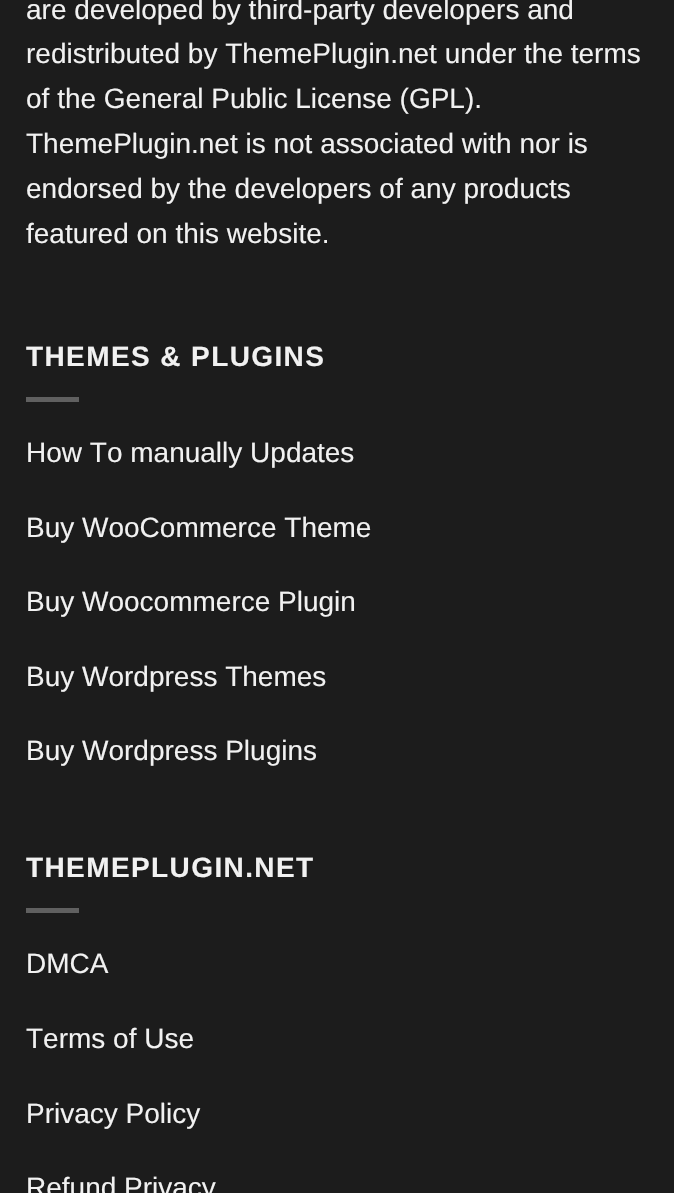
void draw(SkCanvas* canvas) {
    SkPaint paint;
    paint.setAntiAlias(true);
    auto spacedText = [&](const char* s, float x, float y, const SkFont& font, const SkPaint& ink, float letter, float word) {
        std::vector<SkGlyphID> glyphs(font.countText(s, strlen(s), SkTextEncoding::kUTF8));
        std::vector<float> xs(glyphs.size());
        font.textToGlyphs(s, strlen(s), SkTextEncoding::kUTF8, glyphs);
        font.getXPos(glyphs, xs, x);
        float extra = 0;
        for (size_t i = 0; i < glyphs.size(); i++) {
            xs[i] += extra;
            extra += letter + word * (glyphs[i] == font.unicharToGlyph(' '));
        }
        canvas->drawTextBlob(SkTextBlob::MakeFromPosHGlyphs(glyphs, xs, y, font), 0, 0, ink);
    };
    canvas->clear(0xFF1C1C1C);
    SkFont font1(fontMgr->matchFamilyStyle("Liberation Sans", SkFontStyle::Normal()), 28);
    font1.setSubpixel(true);
    paint.setColor(0xFFF1F1F1);
    canvas->drawString("are developed by third-party developers and", 26, 19, font1, paint);
    canvas->drawString("redistributed by ThemePlugin.net under the terms", 26, 63, font1, paint);
    canvas->drawString("of the General Public License (GPL).", 26, 108, font1, paint);
    canvas->drawString("ThemePlugin.net is not associated with nor is", 26, 153, font1, paint);
    canvas->drawString("endorsed by the developers of any products", 26, 198, font1, paint);
    canvas->drawString("featured on this website.", 26, 243, font1, paint);
    SkFont font2(fontMgr->matchFamilyStyle("Liberation Sans", SkFontStyle::Bold()), 28);
    font2.setSubpixel(true);
    spacedText("THEMES & PLUGINS", 26, 366, font2, paint, 1.4f, 0);
    paint.setColor(0xFF606060);
    canvas->drawRect(SkRect::MakeXYWH(26, 397, 53, 5), paint);
    paint.setColor(0xFFF1F1F1);
    canvas->drawString("How To manually Updates", 26, 462, font1, paint);
    canvas->drawString("Buy WooCommerce Theme", 26, 537, font1, paint);
    canvas->drawString("Buy Woocommerce Plugin", 26, 611, font1, paint);
    canvas->drawString("Buy Wordpress Themes", 26, 686, font1, paint);
    canvas->drawString("Buy Wordpress Plugins", 26, 760, font1, paint);
    spacedText("THEMEPLUGIN.NET", 26, 877, font2, paint, 1.4f, 0);
    paint.setColor(0xFF606060);
    canvas->drawRect(SkRect::MakeXYWH(26, 908, 53, 5), paint);
    paint.setColor(0xFFF1F1F1);
    canvas->drawString("DMCA", 26, 973, font1, paint);
    canvas->drawString("Terms of Use", 26, 1048, font1, paint);
    canvas->drawString("Privacy Policy", 26, 1123, font1, paint);
    canvas->drawString("Refund Privacy", 26, 1197, font1, paint);
}
